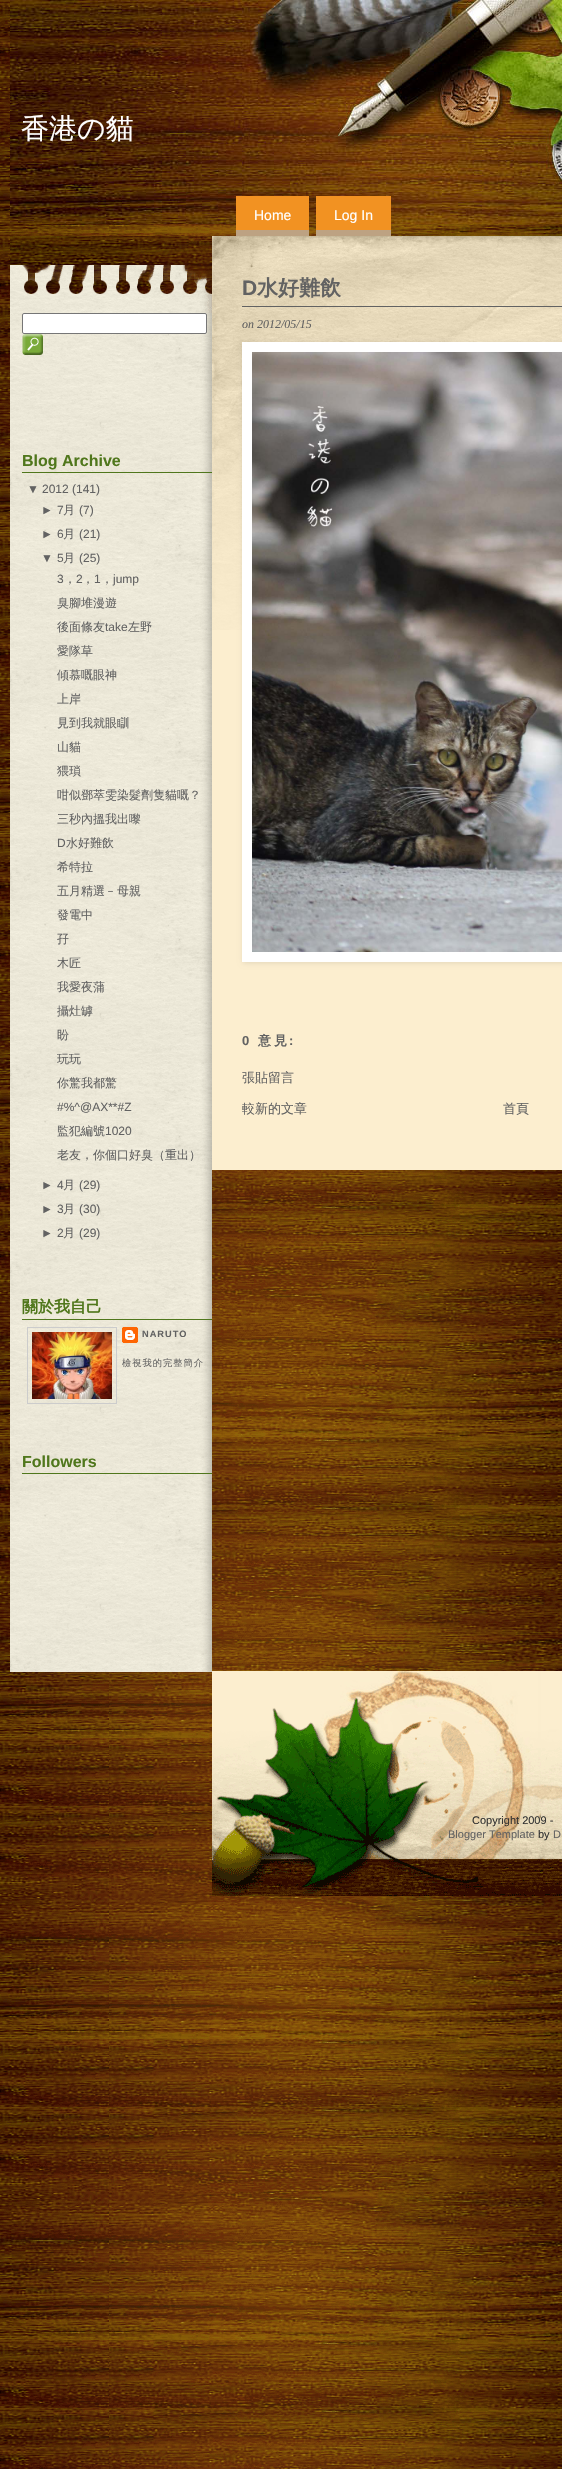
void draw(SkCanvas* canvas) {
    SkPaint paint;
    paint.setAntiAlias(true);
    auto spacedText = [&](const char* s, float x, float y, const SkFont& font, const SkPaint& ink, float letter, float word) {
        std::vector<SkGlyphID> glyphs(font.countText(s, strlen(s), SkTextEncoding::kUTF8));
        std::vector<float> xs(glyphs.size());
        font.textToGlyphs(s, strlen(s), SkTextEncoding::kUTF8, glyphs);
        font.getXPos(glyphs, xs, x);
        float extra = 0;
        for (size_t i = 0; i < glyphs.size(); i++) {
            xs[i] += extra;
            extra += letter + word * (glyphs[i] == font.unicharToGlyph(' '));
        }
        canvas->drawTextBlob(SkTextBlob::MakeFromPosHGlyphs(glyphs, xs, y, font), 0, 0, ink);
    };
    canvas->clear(0xFFFFFFFF);
    canvas->drawImageRect(SkImages::DeferredFromEncodedData(SkData::MakeFromFileName("img1.png")), SkRect::MakeXYWH(0, 0, 562, 2469), SkSamplingOptions());
    canvas->drawImageRect(SkImages::DeferredFromEncodedData(SkData::MakeFromFileName("img2.png")), SkRect::MakeXYWH(10, 0, 552, 224), SkSamplingOptions());
    SkFont font1(fontMgr->matchFamilyStyle("WenQuanYi Zen Hei", SkFontStyle(500, SkFontStyle::kNormal_Width, SkFontStyle::kUpright_Slant)), 28);
    font1.setSubpixel(true);
    paint.setColor(0xFFFFFFFF);
    canvas->drawString("香港の貓", 21, 138, font1, paint);
    paint.setColor(0xFFF29222);
    canvas->drawRect(SkRect::MakeXYWH(236, 196, 73, 34), paint);
    paint.setColor(0xFFBDA282);
    canvas->drawRect(SkRect::MakeXYWH(236, 230, 73, 6), paint);
    SkFont font2(fontMgr->matchFamilyStyle("Liberation Sans", SkFontStyle::Normal()), 14);
    font2.setSubpixel(true);
    paint.setColor(0xFFFFFFFF);
    canvas->drawString("Home", 254, 220, font2, paint);
    paint.setColor(0xFFF29222);
    canvas->drawRect(SkRect::MakeXYWH(316, 196, 75, 34), paint);
    paint.setColor(0xFFBDA282);
    canvas->drawRect(SkRect::MakeXYWH(316, 230, 75, 6), paint);
    paint.setColor(0xFFFFFFFF);
    canvas->drawString("Log In", 334, 220, font2, paint);
    canvas->drawImageRect(SkImages::DeferredFromEncodedData(SkData::MakeFromFileName("img3.png")), SkRect::MakeXYWH(10, 236, 202, 77), SkSamplingOptions());
    canvas->drawImageRect(SkImages::DeferredFromEncodedData(SkData::MakeFromFileName("img4.png")), SkRect::MakeXYWH(10, 313, 202, 1359), SkSamplingOptions());
    canvas->drawRoundRect(SkRect::MakeXYWH(22.5f, 313.5f, 184, 20), 1.5f, 1.5f, paint);
    paint.setStyle(SkPaint::kStroke_Style);
    paint.setStrokeWidth(1);
    paint.setColor(0xFF767676);
    canvas->drawRoundRect(SkRect::MakeXYWH(22.5f, 313.5f, 184, 20), 1.5f, 1.5f, paint);
    canvas->drawImageRect(SkImages::DeferredFromEncodedData(SkData::MakeFromFileName("img5.png")), SkRect::MakeXYWH(22, 334, 21, 21), SkSamplingOptions());
    paint.setStyle(SkPaint::kFill_Style);
    paint.setColor(0xFF50771C);
    canvas->drawRect(SkRect::MakeXYWH(22, 472, 190, 1), paint);
    SkFont font3(fontMgr->matchFamilyStyle("Liberation Sans", SkFontStyle::Bold()), 16);
    font3.setSubpixel(true);
    canvas->drawString("Blog Archive", 22, 466, font3, paint);
    SkFont font4(fontMgr->matchFamilyStyle("Liberation Sans", SkFontStyle::Normal()), 12);
    font4.setSubpixel(true);
    paint.setColor(0xFF626262);
    canvas->drawString("▼", 27, 493, font4, paint);
    canvas->drawString("2012", 42, 493, font4, paint);
    canvas->drawString("(141)", 72, 493, font4, paint);
    canvas->drawString("►", 41, 514, font4, paint);
    canvas->drawString("7", 57, 514, font4, paint);
    SkFont font5(fontMgr->matchFamilyStyle("WenQuanYi Zen Hei", SkFontStyle(500, SkFontStyle::kNormal_Width, SkFontStyle::kUpright_Slant)), 12);
    font5.setSubpixel(true);
    canvas->drawString("月", 63, 514, font5, paint);
    canvas->drawString("(7)", 79, 514, font4, paint);
    canvas->drawString("►", 41, 538, font4, paint);
    canvas->drawString("6", 57, 538, font4, paint);
    canvas->drawString("月", 63, 538, font5, paint);
    canvas->drawString("(21)", 79, 538, font4, paint);
    canvas->drawString("▼", 41, 562, font4, paint);
    canvas->drawString("5", 57, 562, font4, paint);
    canvas->drawString("月", 63, 562, font5, paint);
    canvas->drawString("(25)", 79, 562, font4, paint);
    canvas->drawString("3", 57, 583, font4, paint);
    canvas->drawString("，", 64, 583, font5, paint);
    canvas->drawString("2", 76, 583, font4, paint);
    canvas->drawString("，", 82, 583, font5, paint);
    canvas->drawString("1", 94, 583, font4, paint);
    canvas->drawString("，", 101, 583, font5, paint);
    canvas->drawString("jump", 113, 583, font4, paint);
    canvas->drawString("臭腳堆漫遊", 57, 607, font5, paint);
    canvas->drawString("後面條友", 57, 631, font5, paint);
    canvas->drawString("take", 105, 631, font4, paint);
    canvas->drawString("左野", 128, 631, font5, paint);
    canvas->drawString("愛隊草", 57, 655, font5, paint);
    canvas->drawString("傾慕嘅眼神", 57, 679, font5, paint);
    canvas->drawString("上岸", 57, 703, font5, paint);
    canvas->drawString("見到我就眼瞓", 57, 727, font5, paint);
    canvas->drawString("山貓", 57, 751, font5, paint);
    canvas->drawString("猥瑣", 57, 775, font5, paint);
    canvas->drawString("咁似鄧萃雯染髮劑隻貓嘅？", 57, 799, font5, paint);
    canvas->drawString("三秒內搵我出嚟", 57, 823, font5, paint);
    canvas->drawString("D", 57, 847, font4, paint);
    canvas->drawString("水好難飲", 66, 847, font5, paint);
    canvas->drawString("希特拉", 57, 871, font5, paint);
    canvas->drawString("五月精選﹣母親", 57, 895, font5, paint);
    canvas->drawString("發電中", 57, 919, font5, paint);
    canvas->drawString("孖", 57, 943, font5, paint);
    canvas->drawString("木匠", 57, 967, font5, paint);
    canvas->drawString("我愛夜蒲", 57, 991, font5, paint);
    canvas->drawString("攝灶罅", 57, 1015, font5, paint);
    canvas->drawString("盼", 57, 1039, font5, paint);
    canvas->drawString("玩玩", 57, 1063, font5, paint);
    canvas->drawString("你驚我都驚", 57, 1087, font5, paint);
    canvas->drawString("#%^@AX**#Z", 57, 1111, font4, paint);
    canvas->drawString("監犯編號", 57, 1135, font5, paint);
    canvas->drawString("1020", 105, 1135, font4, paint);
    canvas->drawString("老友，你個口好臭（重出）", 57, 1159, font5, paint);
    canvas->drawString("►", 41, 1189, font4, paint);
    canvas->drawString("4", 57, 1189, font4, paint);
    canvas->drawString("月", 63, 1189, font5, paint);
    canvas->drawString("(29)", 79, 1189, font4, paint);
    canvas->drawString("►", 41, 1213, font4, paint);
    canvas->drawString("3", 57, 1213, font4, paint);
    canvas->drawString("月", 63, 1213, font5, paint);
    canvas->drawString("(30)", 79, 1213, font4, paint);
    canvas->drawString("►", 41, 1237, font4, paint);
    canvas->drawString("2", 57, 1237, font4, paint);
    canvas->drawString("月", 63, 1237, font5, paint);
    canvas->drawString("(29)", 79, 1237, font4, paint);
    paint.setColor(0xFF50771C);
    canvas->drawRect(SkRect::MakeXYWH(22, 1319, 190, 1), paint);
    SkFont font6(fontMgr->matchFamilyStyle("WenQuanYi Zen Hei", SkFontStyle::Bold()), 16);
    font6.setSubpixel(true);
    canvas->drawString("關於我自己", 22, 1312, font6, paint);
    paint.setStyle(SkPaint::kStroke_Style);
    paint.setColor(0xFFCCCCCC);
    canvas->drawRect(SkRect::MakeXYWH(27.5f, 1327.5f, 89, 76), paint);
    canvas->drawImageRect(SkImages::DeferredFromEncodedData(SkData::MakeFromFileName("img6.png")), SkRect::MakeXYWH(32, 1332, 80, 67), SkSamplingOptions());
    canvas->drawImageRect(SkImages::DeferredFromEncodedData(SkData::MakeFromFileName("img7.png")), SkRect::MakeXYWH(122, 1327, 16, 16), SkSamplingOptions());
    SkFont font7(fontMgr->matchFamilyStyle("Liberation Sans", SkFontStyle::Bold()), 9.25f);
    font7.setSubpixel(true);
    paint.setStyle(SkPaint::kFill_Style);
    paint.setColor(0xFF626262);
    spacedText("NARUTO", 142, 1337, font7, paint, 1, 0);
    SkFont font8(fontMgr->matchFamilyStyle("WenQuanYi Zen Hei", SkFontStyle(500, SkFontStyle::kNormal_Width, SkFontStyle::kUpright_Slant)), 9.25f);
    font8.setSubpixel(true);
    spacedText("檢視我的完整簡介", 122, 1366, font8, paint, 1, 0);
    paint.setColor(0xFF50771C);
    canvas->drawRect(SkRect::MakeXYWH(22, 1473, 190, 1), paint);
    canvas->drawString("Followers", 22, 1467, font3, paint);
    paint.setColor(0xFFFCEECF);
    canvas->drawRect(SkRect::MakeXYWH(212, 630, 350, 540), paint);
    canvas->drawImageRect(SkImages::DeferredFromEncodedData(SkData::MakeFromFileName("img8.png")), SkRect::MakeXYWH(212, 236, 350, 394), SkSamplingOptions());
    paint.setColor(0xFF626262);
    canvas->drawRect(SkRect::MakeXYWH(242, 306, 320, 1), paint);
    SkFont font9(fontMgr->matchFamilyStyle("Liberation Sans", SkFontStyle::Bold()), 21);
    font9.setSubpixel(true);
    canvas->drawString("D", 242, 295, font9, paint);
    SkFont font10(fontMgr->matchFamilyStyle("WenQuanYi Zen Hei", SkFontStyle::Bold()), 21);
    font10.setSubpixel(true);
    canvas->drawString("水好難飲", 257, 295, font10, paint);
    SkFont font11(fontMgr->matchFamilyStyle("Liberation Serif", SkFontStyle::Italic()), 12);
    font11.setSubpixel(true);
    canvas->drawString("on 2012/05/15", 242, 328, font11, paint);
    paint.setColor(0x1A000000);
    paint.setMaskFilter(SkMaskFilter::MakeBlur(kNormal_SkBlurStyle, 2.5f));
    canvas->drawRect(SkRect::MakeXYWH(243, 343, 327, 620), paint);
    paint.setMaskFilter(nullptr);
    paint.setStyle(SkPaint::kStroke_Style);
    paint.setStrokeWidth(10);
    paint.setColor(0xFFFFFFFF);
    canvas->drawRect(SkRect::MakeXYWH(247, 347, 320, 610), paint);
    canvas->drawImageRect(SkImages::DeferredFromEncodedData(SkData::MakeFromFileName("img9.png")), SkRect::MakeXYWH(252, 352, 310, 600), SkSamplingOptions());
    SkFont font12(fontMgr->matchFamilyStyle("Liberation Sans", SkFontStyle::Bold()), 13);
    font12.setSubpixel(true);
    paint.setStyle(SkPaint::kFill_Style);
    paint.setColor(0xFF626262);
    spacedText("0", 242, 1045, font12, paint, 3, 0);
    SkFont font13(fontMgr->matchFamilyStyle("WenQuanYi Zen Hei", SkFontStyle::Bold()), 13);
    font13.setSubpixel(true);
    spacedText("意見", 258, 1045, font13, paint, 3, 0);
    spacedText(":", 289, 1045, font12, paint, 3, 0);
    SkFont font14(fontMgr->matchFamilyStyle("WenQuanYi Zen Hei", SkFontStyle(500, SkFontStyle::kNormal_Width, SkFontStyle::kUpright_Slant)), 13);
    font14.setSubpixel(true);
    canvas->drawString("張貼留言", 242, 1082, font14, paint);
    canvas->drawString("較新的文章", 242, 1113, font14, paint);
    canvas->drawString("首頁", 503, 1113, font14, paint);
    canvas->drawImageRect(SkImages::DeferredFromEncodedData(SkData::MakeFromFileName("img10.png")), SkRect::MakeXYWH(212, 1671, 350, 225), SkSamplingOptions());
    SkFont font15(fontMgr->matchFamilyStyle("Liberation Sans", SkFontStyle::Normal()), 11);
    font15.setSubpixel(true);
    paint.setColor(0xFF333333);
    canvas->drawString("Copyright 2009 -", 472, 1824, font15, paint);
    paint.setColor(0xFF626262);
    canvas->drawString("Blogger Template", 448, 1838, font15, paint);
    paint.setColor(0xFF333333);
    canvas->drawString("by", 538, 1838, font15, paint);
    paint.setColor(0xFF626262);
    canvas->drawString("D", 553, 1838, font15, paint);
}
